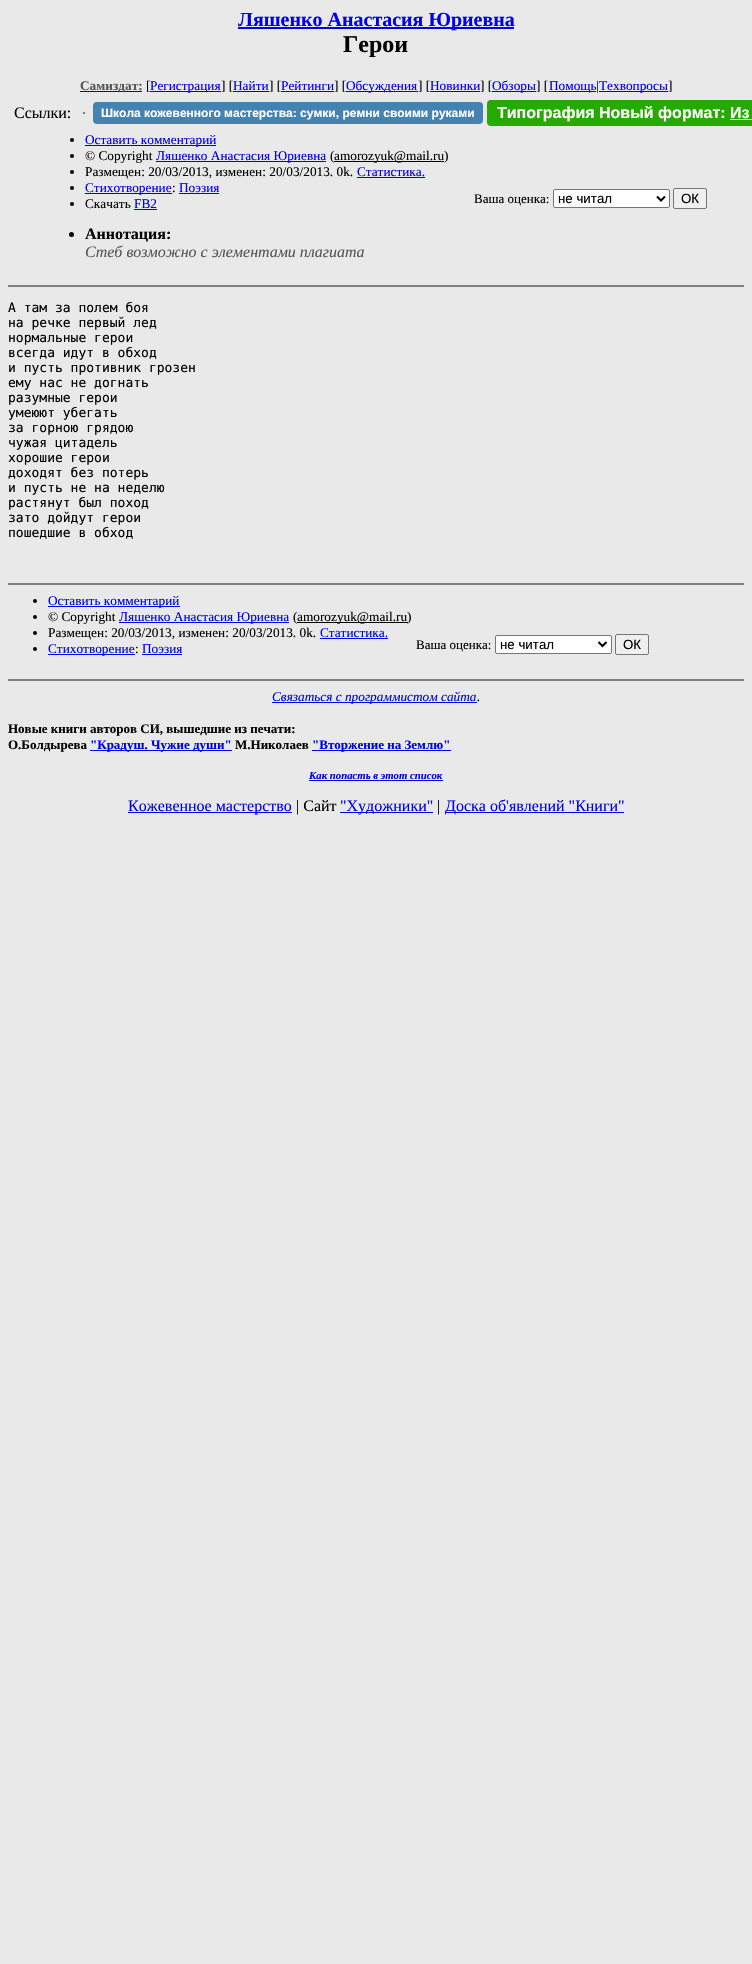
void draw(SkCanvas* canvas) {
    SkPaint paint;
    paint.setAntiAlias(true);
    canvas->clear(0xFFE9E9E9);
    paint.setColor(0xFF0000EE);
    canvas->drawRect(SkRect::MakeXYWH(238, 27, 276, 2), paint);
    SkFont font1(fontMgr->matchFamilyStyle("Liberation Serif", SkFontStyle::Bold()), 20);
    font1.setSubpixel(true);
    canvas->drawString("Ляшенко Анастасия Юриевна", 238, 26, font1, paint);
    SkFont font2(fontMgr->matchFamilyStyle("Liberation Serif", SkFontStyle::Bold()), 24);
    font2.setSubpixel(true);
    paint.setColor(0xFF000000);
    canvas->drawString("Герои", 343, 52, font2, paint);
    paint.setColor(0xFF0000EE);
    canvas->drawRect(SkRect::MakeXYWH(80, 91, 62, 1), paint);
    SkFont font3(fontMgr->matchFamilyStyle("Liberation Serif", SkFontStyle::Bold()), 13.3f);
    font3.setSubpixel(true);
    paint.setColor(0xFF555555);
    canvas->drawString("Самиздат:", 80, 90, font3, paint);
    SkFont font4(fontMgr->matchFamilyStyle("Liberation Serif", SkFontStyle::Normal()), 13.3f);
    font4.setSubpixel(true);
    paint.setColor(0xFF000000);
    canvas->drawString("[", 146, 90, font4, paint);
    paint.setColor(0xFF0000EE);
    canvas->drawRect(SkRect::MakeXYWH(150, 91, 71, 1), paint);
    canvas->drawString("Регистрация", 150, 90, font4, paint);
    paint.setColor(0xFF000000);
    canvas->drawString("] [", 221, 90, font4, paint);
    paint.setColor(0xFF0000EE);
    canvas->drawRect(SkRect::MakeXYWH(233, 91, 36, 1), paint);
    canvas->drawString("Найти", 233, 90, font4, paint);
    paint.setColor(0xFF000000);
    canvas->drawString("] [", 269, 90, font4, paint);
    paint.setColor(0xFF0000EE);
    canvas->drawRect(SkRect::MakeXYWH(281, 91, 53, 1), paint);
    canvas->drawString("Рейтинги", 281, 90, font4, paint);
    paint.setColor(0xFF000000);
    canvas->drawString("] [", 334, 90, font4, paint);
    paint.setColor(0xFF0000EE);
    canvas->drawRect(SkRect::MakeXYWH(346, 91, 72, 1), paint);
    canvas->drawString("Обсуждения", 346, 90, font4, paint);
    paint.setColor(0xFF000000);
    canvas->drawString("] [", 418, 90, font4, paint);
    paint.setColor(0xFF0000EE);
    canvas->drawRect(SkRect::MakeXYWH(430, 91, 50, 1), paint);
    canvas->drawString("Новинки", 430, 90, font4, paint);
    paint.setColor(0xFF000000);
    canvas->drawString("] [", 480, 90, font4, paint);
    paint.setColor(0xFF0000EE);
    canvas->drawRect(SkRect::MakeXYWH(492, 91, 44, 1), paint);
    canvas->drawString("Обзоры", 492, 90, font4, paint);
    paint.setColor(0xFF000000);
    canvas->drawString("] [", 536, 90, font4, paint);
    paint.setColor(0xFF0000EE);
    canvas->drawRect(SkRect::MakeXYWH(549, 91, 47, 1), paint);
    canvas->drawString("Помощь", 549, 90, font4, paint);
    paint.setColor(0xFF000000);
    canvas->drawString("|", 596, 90, font4, paint);
    paint.setColor(0xFF0000EE);
    canvas->drawRect(SkRect::MakeXYWH(599, 91, 69, 1), paint);
    canvas->drawString("Техвопросы", 599, 90, font4, paint);
    paint.setColor(0xFF000000);
    canvas->drawString("]", 668, 90, font4, paint);
    SkFont font5(fontMgr->matchFamilyStyle("Liberation Serif", SkFontStyle::Normal()), 16);
    font5.setSubpixel(true);
    canvas->drawString("Ссылки:", 14, 118, font5, paint);
    paint.setColor(0xFF808080);
    canvas->drawRect(SkRect::MakeXYWH(83, 112, 2, 2), paint);
    paint.setColor(0xFF4582AF);
    canvas->drawRoundRect(SkRect::MakeXYWH(93, 102, 390, 22), 4, 4, paint);
    SkFont font6(fontMgr->matchFamilyStyle("Liberation Sans", SkFontStyle::Bold()), 12);
    font6.setSubpixel(true);
    paint.setColor(0xFFFFFFFF);
    canvas->drawString("Школа кожевенного мастерства: сумки, ремни своими руками", 101, 117, font6, paint);
    paint.setColor(0xFF25AA00);
    canvas->drawRoundRect(SkRect::MakeXYWH(487, 100, 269, 26), 4, 4, paint);
    SkFont font7(fontMgr->matchFamilyStyle("Liberation Sans", SkFontStyle::Bold()), 16);
    font7.setSubpixel(true);
    paint.setColor(0xFFFFFFFF);
    canvas->drawString("Типография Новый формат: Из", 497, 118, font7, paint);
    canvas->drawRect(SkRect::MakeXYWH(730, 119, 22, 1), paint);
    paint.setColor(0xFF000000);
    canvas->drawCircle(72, 140, 2, paint);
    paint.setColor(0xFF0000EE);
    canvas->drawRect(SkRect::MakeXYWH(85, 145, 131, 1), paint);
    canvas->drawString("Оставить комментарий", 85, 144, font4, paint);
    paint.setColor(0xFF000000);
    canvas->drawCircle(72, 156, 2, paint);
    canvas->drawString("© Copyright", 85, 160, font4, paint);
    paint.setColor(0xFF0000EE);
    canvas->drawRect(SkRect::MakeXYWH(156, 161, 170, 1), paint);
    canvas->drawString("Ляшенко Анастасия Юриевна", 156, 160, font4, paint);
    paint.setColor(0xFF000000);
    canvas->drawString("(", 330, 160, font4, paint);
    canvas->drawRect(SkRect::MakeXYWH(334, 161, 110, 1), paint);
    canvas->drawString("amorozyuk@mail.ru)", 334, 160, font4, paint);
    canvas->drawCircle(72, 172, 2, paint);
    canvas->drawString("Размещен: 20/03/2013, изменен: 20/03/2013. 0k.", 85, 176, font4, paint);
    paint.setColor(0xFF0000EE);
    canvas->drawString("Статистика.", 357, 176, font4, paint);
    canvas->drawRect(SkRect::MakeXYWH(357, 177, 68, 1), paint);
    paint.setColor(0xFF000000);
    canvas->drawCircle(72, 188, 2, paint);
    paint.setColor(0xFF0000EE);
    canvas->drawRect(SkRect::MakeXYWH(85, 193, 87, 1), paint);
    canvas->drawString("Стихотворение", 85, 192, font4, paint);
    paint.setColor(0xFF000000);
    canvas->drawString(":", 172, 192, font4, paint);
    paint.setColor(0xFF0000EE);
    canvas->drawString("Поэзия", 179, 192, font4, paint);
    canvas->drawRect(SkRect::MakeXYWH(179, 193, 40, 1), paint);
    paint.setColor(0xFF000000);
    canvas->drawCircle(72, 204, 2, paint);
    canvas->drawString("Скачать", 85, 208, font4, paint);
    paint.setColor(0xFF0000EE);
    canvas->drawString("FB2", 134, 208, font4, paint);
    canvas->drawRect(SkRect::MakeXYWH(134, 209, 23, 1), paint);
    SkFont font8(fontMgr->matchFamilyStyle("Liberation Serif", SkFontStyle::Normal()), 13);
    font8.setSubpixel(true);
    paint.setColor(0xFF000000);
    canvas->drawString("Ваша оценка:", 474, 203, font8, paint);
    paint.setColor(0xFFFFFFFF);
    canvas->drawRoundRect(SkRect::MakeXYWH(553.5f, 189.5f, 116, 18), 1.5f, 1.5f, paint);
    paint.setStyle(SkPaint::kStroke_Style);
    paint.setStrokeWidth(1);
    paint.setColor(0xFF767676);
    canvas->drawRoundRect(SkRect::MakeXYWH(553.5f, 189.5f, 116, 18), 1.5f, 1.5f, paint);
    paint.setStrokeWidth(2);
    paint.setColor(0xFF000000);
    canvas->drawPath(SkPathBuilder().moveTo(657, 196.5f).lineTo(661, 200.5f).lineTo(665, 196.5f).detach(), paint);
    SkFont font9(fontMgr->matchFamilyStyle("Liberation Sans", SkFontStyle::Normal()), 13.3f);
    font9.setSubpixel(true);
    paint.setStyle(SkPaint::kFill_Style);
    canvas->drawString("не читал", 558, 203, font9, paint);
    paint.setColor(0xFFEFEFEF);
    canvas->drawRoundRect(SkRect::MakeXYWH(673.5f, 188.5f, 33, 20), 1.5f, 1.5f, paint);
    paint.setStyle(SkPaint::kStroke_Style);
    paint.setStrokeWidth(1);
    paint.setColor(0xFF767676);
    canvas->drawRoundRect(SkRect::MakeXYWH(673.5f, 188.5f, 33, 20), 1.5f, 1.5f, paint);
    paint.setStyle(SkPaint::kFill_Style);
    paint.setColor(0xFF000000);
    canvas->drawString("ОК", 681, 203, font9, paint);
    canvas->drawCircle(71.5f, 234.5f, 2.5f, paint);
    SkFont font10(fontMgr->matchFamilyStyle("Liberation Serif", SkFontStyle::Bold()), 16);
    font10.setSubpixel(true);
    canvas->drawString("Аннотация:", 85, 239, font10, paint);
    SkFont font11(fontMgr->matchFamilyStyle("Liberation Serif", SkFontStyle::Italic()), 16);
    font11.setSubpixel(true);
    paint.setColor(0xFF555555);
    canvas->drawString("Cтеб возможно с элементами плагиата", 85, 257, font11, paint);
    paint.setColor(0xFF808080);
    canvas->drawRect(SkRect::MakeXYWH(8, 285, 736, 2), paint);
    SkFont font12(fontMgr->matchFamilyStyle("DejaVu Sans Mono", SkFontStyle::Normal()), 13);
    font12.setSubpixel(true);
    paint.setColor(0xFF000000);
    canvas->drawString("А там за полем боя", 8, 312, font12, paint);
    canvas->drawString("на речке первый лед", 8, 327, font12, paint);
    canvas->drawString("нормальные герои", 8, 342, font12, paint);
    canvas->drawString("всегда идут в обход", 8, 357, font12, paint);
    canvas->drawString("и пусть противник грозен", 8, 372, font12, paint);
    canvas->drawString("ему нас не догнать", 8, 387, font12, paint);
    canvas->drawString("разумные герои", 8, 402, font12, paint);
    canvas->drawString("умеюют убегать", 8, 417, font12, paint);
    canvas->drawString("за горною грядою", 8, 432, font12, paint);
    canvas->drawString("чужая цитадель", 8, 447, font12, paint);
    canvas->drawString("хорошие герои", 8, 462, font12, paint);
    canvas->drawString("доходят без потерь", 8, 477, font12, paint);
    canvas->drawString("и пусть не на неделю", 8, 492, font12, paint);
    canvas->drawString("растянут был поход", 8, 507, font12, paint);
    canvas->drawString("зато дойдут герои", 8, 522, font12, paint);
    canvas->drawString("пошедшие в обход", 8, 537, font12, paint);
    paint.setColor(0xFF808080);
    canvas->drawRect(SkRect::MakeXYWH(8, 583, 736, 2), paint);
    paint.setColor(0xFF000000);
    canvas->drawCircle(35, 601, 2, paint);
    paint.setColor(0xFF0000EE);
    canvas->drawRect(SkRect::MakeXYWH(48, 606, 132, 1), paint);
    canvas->drawString("Оставить комментарий", 48, 605, font4, paint);
    paint.setColor(0xFF000000);
    canvas->drawCircle(35, 617, 2, paint);
    canvas->drawString("© Copyright", 48, 621, font4, paint);
    paint.setColor(0xFF0000EE);
    canvas->drawRect(SkRect::MakeXYWH(119, 622, 170, 1), paint);
    canvas->drawString("Ляшенко Анастасия Юриевна", 119, 621, font4, paint);
    paint.setColor(0xFF000000);
    canvas->drawString("(", 293, 621, font4, paint);
    canvas->drawRect(SkRect::MakeXYWH(297, 622, 111, 1), paint);
    canvas->drawString("amorozyuk@mail.ru)", 297, 621, font4, paint);
    canvas->drawCircle(35, 633, 2, paint);
    canvas->drawString("Размещен: 20/03/2013, изменен: 20/03/2013. 0k.", 48, 637, font4, paint);
    paint.setColor(0xFF0000EE);
    canvas->drawString("Статистика.", 320, 637, font4, paint);
    canvas->drawRect(SkRect::MakeXYWH(320, 638, 68, 1), paint);
    paint.setColor(0xFF000000);
    canvas->drawCircle(35, 649, 2, paint);
    paint.setColor(0xFF0000EE);
    canvas->drawRect(SkRect::MakeXYWH(48, 654, 87, 1), paint);
    canvas->drawString("Стихотворение", 48, 653, font4, paint);
    paint.setColor(0xFF000000);
    canvas->drawString(":", 135, 653, font4, paint);
    paint.setColor(0xFF0000EE);
    canvas->drawString("Поэзия", 142, 653, font4, paint);
    canvas->drawRect(SkRect::MakeXYWH(142, 654, 40, 1), paint);
    paint.setColor(0xFF000000);
    canvas->drawString("Ваша оценка:", 416, 649, font8, paint);
    paint.setColor(0xFFFFFFFF);
    canvas->drawRoundRect(SkRect::MakeXYWH(495.5f, 635.5f, 116, 18), 1.5f, 1.5f, paint);
    paint.setStyle(SkPaint::kStroke_Style);
    paint.setColor(0xFF767676);
    canvas->drawRoundRect(SkRect::MakeXYWH(495.5f, 635.5f, 116, 18), 1.5f, 1.5f, paint);
    paint.setStrokeWidth(2);
    paint.setColor(0xFF000000);
    canvas->drawPath(SkPathBuilder().moveTo(598.5f, 642).lineTo(602.5f, 646).lineTo(606.5f, 642).detach(), paint);
    paint.setStyle(SkPaint::kFill_Style);
    canvas->drawString("не читал", 500, 649, font9, paint);
    paint.setColor(0xFFEFEFEF);
    canvas->drawRoundRect(SkRect::MakeXYWH(615.5f, 634.5f, 33, 20), 1.5f, 1.5f, paint);
    paint.setStyle(SkPaint::kStroke_Style);
    paint.setStrokeWidth(1);
    paint.setColor(0xFF767676);
    canvas->drawRoundRect(SkRect::MakeXYWH(615.5f, 634.5f, 33, 20), 1.5f, 1.5f, paint);
    paint.setStyle(SkPaint::kFill_Style);
    paint.setColor(0xFF000000);
    canvas->drawString("ОК", 623, 649, font9, paint);
    paint.setColor(0xFF808080);
    canvas->drawRect(SkRect::MakeXYWH(8, 679, 736, 2), paint);
    paint.setColor(0xFF0000EE);
    canvas->drawRect(SkRect::MakeXYWH(272, 702, 205, 1), paint);
    SkFont font13(fontMgr->matchFamilyStyle("Liberation Serif", SkFontStyle::Italic()), 13.3f);
    font13.setSubpixel(true);
    canvas->drawString("Связаться с программистом сайта", 272, 701, font13, paint);
    paint.setColor(0xFF000000);
    canvas->drawString(".", 477, 701, font13, paint);
    SkFont font14(fontMgr->matchFamilyStyle("Liberation Serif", SkFontStyle::Bold()), 13);
    font14.setSubpixel(true);
    canvas->drawString("Новые книги авторов СИ, вышедшие из печати:", 8, 733, font14, paint);
    canvas->drawString("О.Болдырева", 8, 749, font14, paint);
    paint.setColor(0xFF0000EE);
    canvas->drawRect(SkRect::MakeXYWH(90, 750, 142, 1), paint);
    canvas->drawString("\"Крадуш. Чужие души\"", 90, 749, font14, paint);
    paint.setColor(0xFF000000);
    canvas->drawString("М.Николаев", 235, 749, font14, paint);
    paint.setColor(0xFF0000EE);
    canvas->drawRect(SkRect::MakeXYWH(312, 750, 139, 1), paint);
    canvas->drawString("\"Вторжение на Землю\"", 312, 749, font14, paint);
    SkFont font15(fontMgr->matchFamilyStyle("Liberation Serif", SkFontStyle::BoldItalic()), 10.75f);
    font15.setSubpixel(true);
    canvas->drawString("Как попасть в этoт список", 309, 779, font15, paint);
    canvas->drawRect(SkRect::MakeXYWH(309, 780, 134, 1), paint);
    canvas->drawRect(SkRect::MakeXYWH(128, 812, 164, 1), paint);
    canvas->drawString("Кожевенное мастерство", 128, 811, font5, paint);
    paint.setColor(0xFF000000);
    canvas->drawString("| Сайт", 296, 811, font5, paint);
    paint.setColor(0xFF0000EE);
    canvas->drawRect(SkRect::MakeXYWH(340, 812, 93, 1), paint);
    canvas->drawString("\"Художники\"", 340, 811, font5, paint);
    paint.setColor(0xFF000000);
    canvas->drawString("|", 437, 811, font5, paint);
    paint.setColor(0xFF0000EE);
    canvas->drawRect(SkRect::MakeXYWH(445, 812, 179, 1), paint);
    canvas->drawString("Доска об'явлений \"Книги\"", 445, 811, font5, paint);
}
